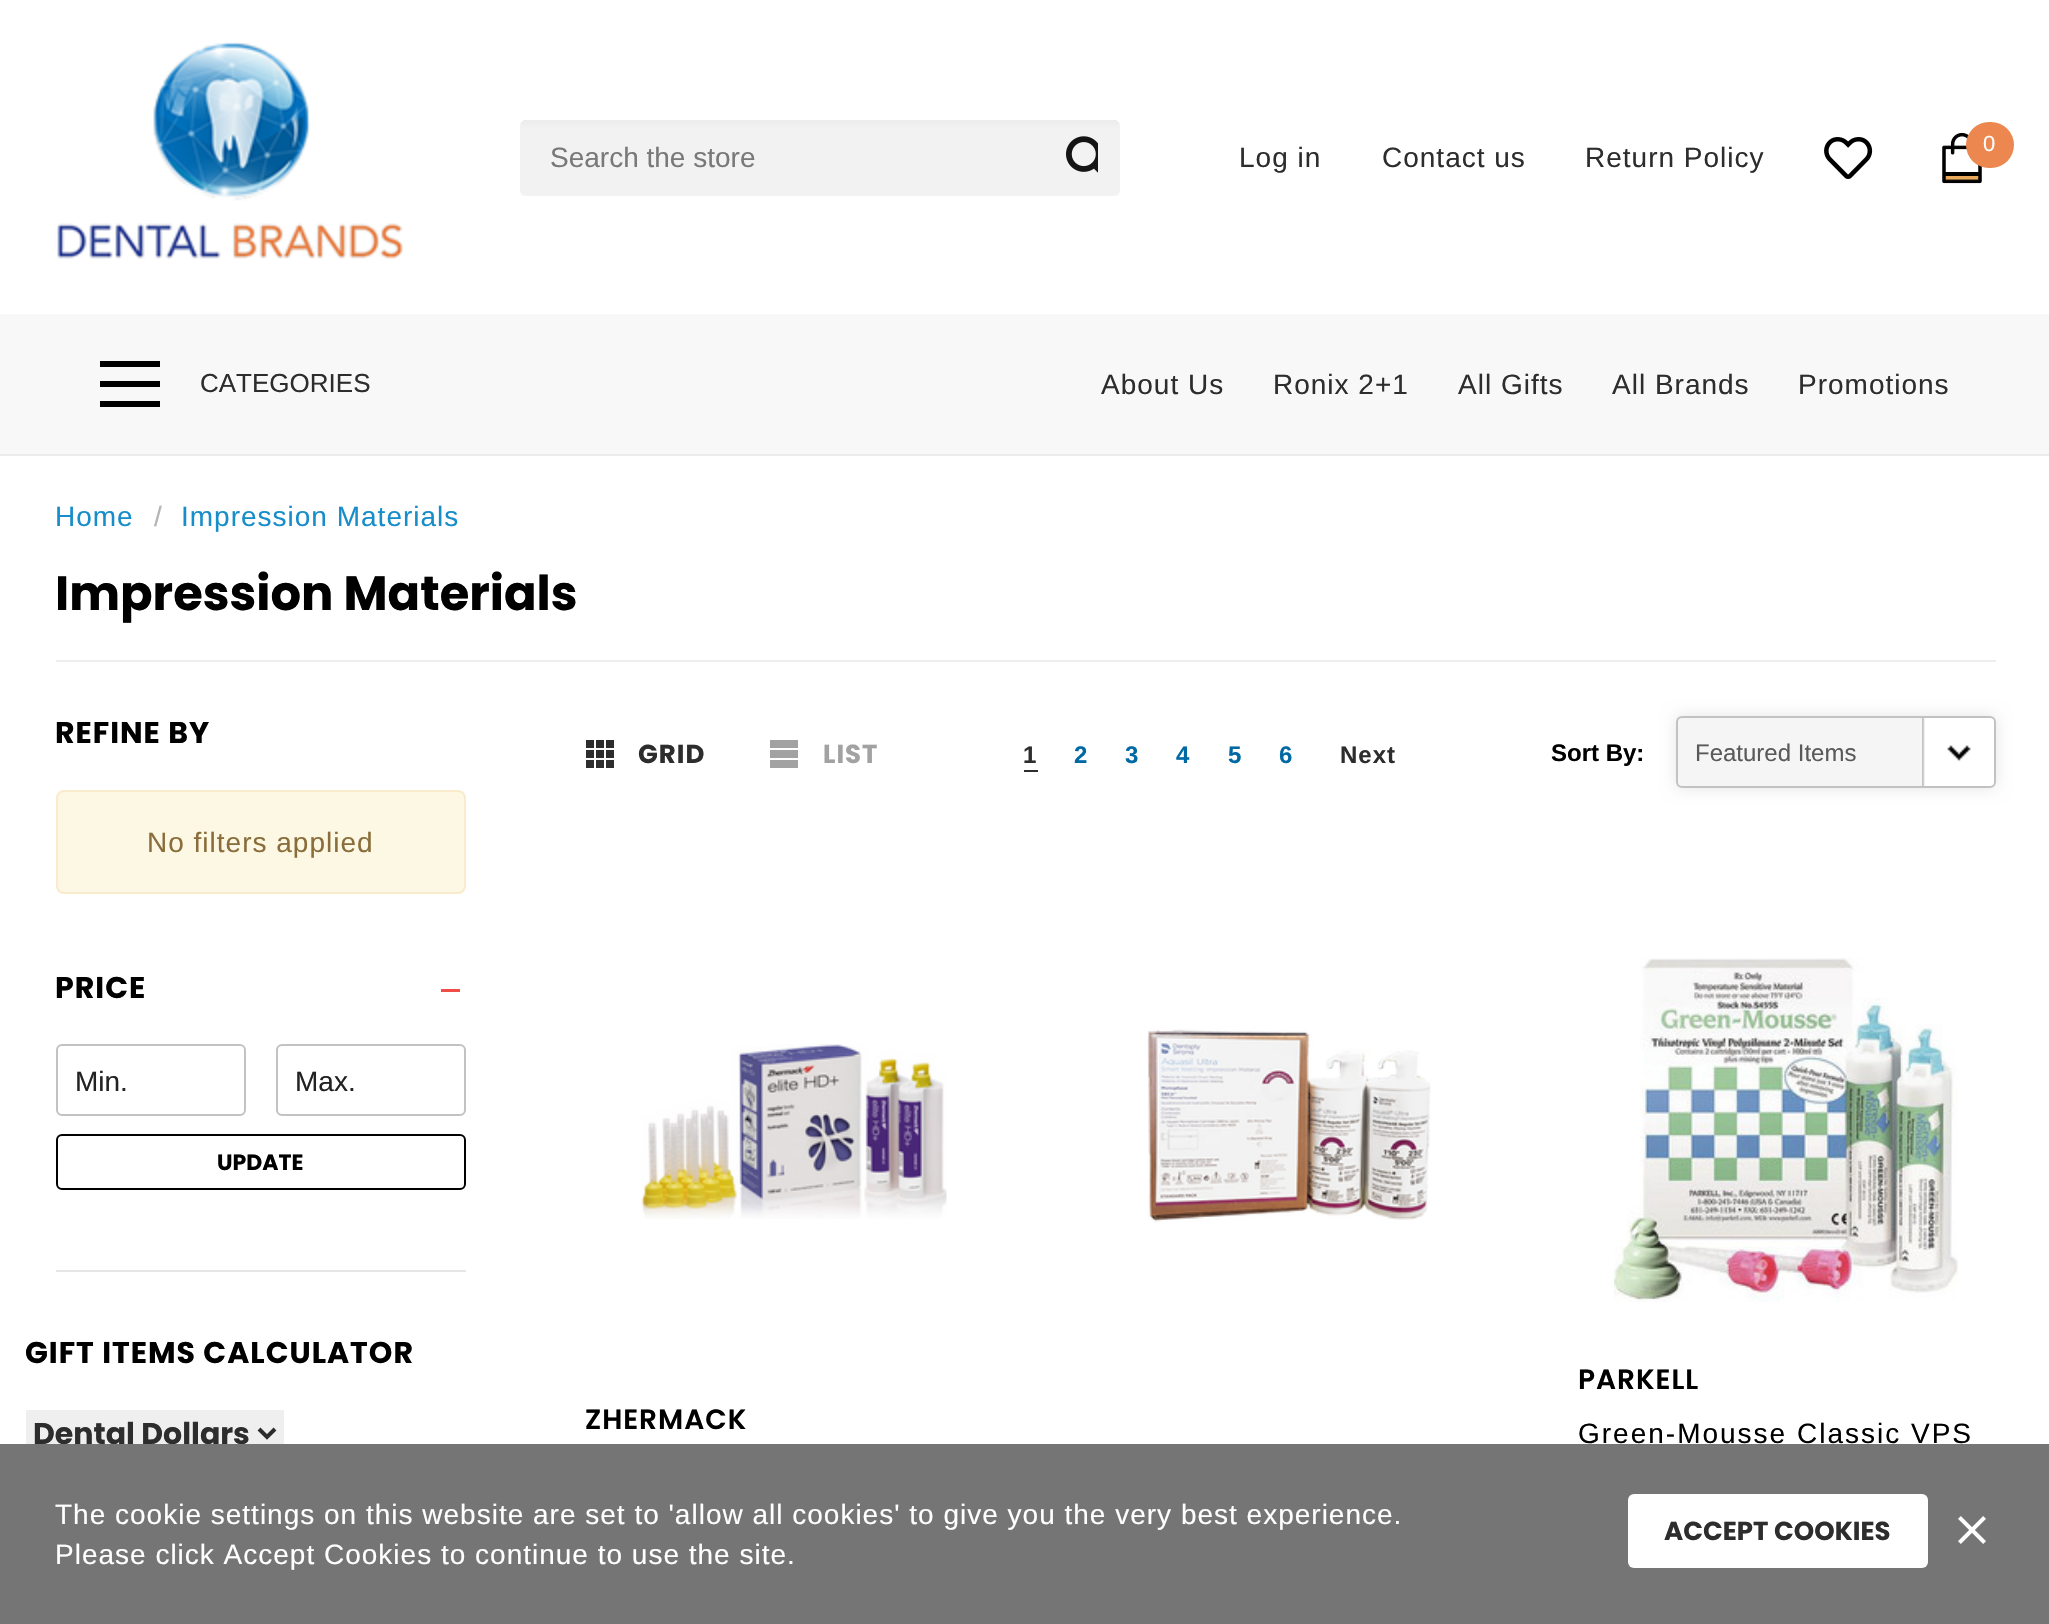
void draw(SkCanvas* canvas) {
    SkPaint paint;
    paint.setAntiAlias(true);
    auto spacedText = [&](const char* s, float x, float y, const SkFont& font, const SkPaint& ink, float letter, float word) {
        std::vector<SkGlyphID> glyphs(font.countText(s, strlen(s), SkTextEncoding::kUTF8));
        std::vector<float> xs(glyphs.size());
        font.textToGlyphs(s, strlen(s), SkTextEncoding::kUTF8, glyphs);
        font.getXPos(glyphs, xs, x);
        float extra = 0;
        for (size_t i = 0; i < glyphs.size(); i++) {
            xs[i] += extra;
            extra += letter + word * (glyphs[i] == font.unicharToGlyph(' '));
        }
        canvas->drawTextBlob(SkTextBlob::MakeFromPosHGlyphs(glyphs, xs, y, font), 0, 0, ink);
    };
    canvas->clear(0xFFFFFFFF);
    paint.setColor(0xFFEBEBEB);
    canvas->drawRect(SkRect::MakeXYWH(0, 454, 2049, 2), paint);
    canvas->drawImageRect(SkImages::DeferredFromEncodedData(SkData::MakeFromFileName("img1.png")), SkRect::MakeXYWH(57, 42, 346, 217), SkSamplingOptions());
    paint.setColor(0xFFF2F2F2);
    canvas->drawRoundRect(SkRect::MakeXYWH(520, 120, 600, 76), 6, 6, paint);
    {
        const SkColor colors[] = {0xFFEBEBEB, 0x00EBEBEB};
        const float stops[] = {0, 1};
        const SkPoint ends[] = {{820, 120}, {820, 128}};
        paint.setShader(SkGradientShader::MakeLinear(ends, colors, stops, 2, SkTileMode::kClamp));
        paint.setAlpha(255);
    }
    canvas->drawPath(SkPathBuilder().moveTo(526, 120).lineTo(1114, 120).cubicTo(1117.5f, 120, 1120, 122.5f, 1120, 126).lineTo(1120, 128).lineTo(520, 128).lineTo(520, 126).cubicTo(520, 122.5f, 522.5f, 120, 526, 120).close().detach(), paint);
    SkFont font1(fontMgr->matchFamilyStyle("Arimo", SkFontStyle::Normal()), 28);
    font1.setSubpixel(true);
    paint.setShader(nullptr);
    paint.setColor(0xFF797979);
    canvas->drawString("Search the store", 550, 167, font1, paint);
    canvas->drawImageRect(SkImages::DeferredFromEncodedData(SkData::MakeFromFileName("img2.png")), SkRect::MakeXYWH(1066, 136, 32, 37), SkSamplingOptions());
    paint.setColor(0xFF2D2D2D);
    spacedText("Log in", 1239, 167, font1, paint, 1, 0);
    spacedText("Contact us", 1382, 167, font1, paint, 1, 0);
    spacedText("Return Policy", 1585, 167, font1, paint, 1, 0);
    canvas->drawImageRect(SkImages::DeferredFromEncodedData(SkData::MakeFromFileName("img3.png")), SkRect::MakeXYWH(1824, 137, 49, 42), SkSamplingOptions());
    paint.setColor(0xFFEBA95C);
    canvas->drawRect(SkRect::MakeXYWH(1944, 176, 36, 4), paint);
    paint.setColor(0xFF000000);
    canvas->drawRect(SkRect::MakeXYWH(1944, 172, 36, 4), paint);
    canvas->drawImageRect(SkImages::DeferredFromEncodedData(SkData::MakeFromFileName("img4.png")), SkRect::MakeXYWH(1942, 132, 40, 52), SkSamplingOptions());
    paint.setColor(0xFFEB874F);
    canvas->drawRoundRect(SkRect::MakeXYWH(1966, 122, 48, 46), 23, 23, paint);
    SkFont font2(fontMgr->matchFamilyStyle("Arimo", SkFontStyle::Normal()), 22);
    font2.setSubpixel(true);
    paint.setColor(0xFFFFFFFF);
    spacedText("0", 1983, 151, font2, paint, 1, 0);
    paint.setColor(0xFFF8F8F8);
    canvas->drawRect(SkRect::MakeXYWH(0, 314, 2049, 140), paint);
    paint.setColor(0xFF000000);
    canvas->drawRect(SkRect::MakeXYWH(100, 361, 60, 6), paint);
    canvas->drawRect(SkRect::MakeXYWH(100, 401, 60, 6), paint);
    canvas->drawRect(SkRect::MakeXYWH(100, 381, 60, 6), paint);
    SkFont font3(fontMgr->matchFamilyStyle("Arimo", SkFontStyle::Normal()), 26);
    font3.setSubpixel(true);
    paint.setColor(0xFF2D2D2D);
    canvas->drawString("CATEGORIES", 200, 392, font3, paint);
    spacedText("About Us", 1101, 394, font1, paint, 1, 0);
    spacedText("Ronix 2+1", 1273, 394, font1, paint, 1, 0);
    spacedText("All Gifts", 1458, 394, font1, paint, 1, 0);
    spacedText("All Brands", 1612, 394, font1, paint, 1, 0);
    spacedText("Promotions", 1798, 394, font1, paint, 1, 0);
    paint.setColor(0xFF178DC9);
    spacedText("Home", 55, 526, font1, paint, 1, 0);
    paint.setColor(0xFFB4B4B4);
    spacedText("/", 154, 526, font1, paint, 1, 0);
    paint.setColor(0xFF178DC9);
    spacedText("Impression Materials", 181, 526, font1, paint, 1, 0);
    paint.setColor(0xFFEEEEEE);
    canvas->drawRect(SkRect::MakeXYWH(56, 660, 1940, 2), paint);
    SkFont font4(fontMgr->matchFamilyStyle("Poppins", SkFontStyle::Bold()), 48);
    font4.setSubpixel(true);
    paint.setColor(0xFF000000);
    canvas->drawString("Impression Materials", 55, 610, font4, paint);
    SkFont font5(fontMgr->matchFamilyStyle("Poppins", SkFontStyle::Bold()), 30);
    font5.setSubpixel(true);
    spacedText("REFINE BY", 55, 743, font5, paint, 1, 0);
    paint.setColor(0xFFFCF8E3);
    canvas->drawRoundRect(SkRect::MakeXYWH(57, 791, 408, 102), 7, 7, paint);
    paint.setStyle(SkPaint::kStroke_Style);
    paint.setStrokeWidth(2);
    paint.setColor(0xFFFAEBCC);
    canvas->drawRoundRect(SkRect::MakeXYWH(57, 791, 408, 102), 7, 7, paint);
    paint.setStyle(SkPaint::kFill_Style);
    paint.setColor(0xFF8A6D3B);
    spacedText("No filters applied", 147, 852, font1, paint, 1, 0);
    paint.setColor(0xFF000000);
    spacedText("PRICE", 55, 998, font5, paint, 1, 0);
    paint.setColor(0xFFF14D48);
    canvas->drawRect(SkRect::MakeXYWH(441, 989, 19, 3), paint);
    paint.setStyle(SkPaint::kStroke_Style);
    paint.setColor(0xFFC2C2C2);
    canvas->drawRoundRect(SkRect::MakeXYWH(57, 1045, 188, 70), 5, 5, paint);
    paint.setStyle(SkPaint::kFill_Style);
    paint.setColor(0xFF222222);
    canvas->drawString("Min.", 75, 1091, font1, paint);
    paint.setStyle(SkPaint::kStroke_Style);
    paint.setColor(0xFFC2C2C2);
    canvas->drawRoundRect(SkRect::MakeXYWH(277, 1045, 188, 70), 5, 5, paint);
    paint.setStyle(SkPaint::kFill_Style);
    paint.setColor(0xFF222222);
    canvas->drawString("Max.", 295, 1091, font1, paint);
    paint.setStyle(SkPaint::kStroke_Style);
    paint.setColor(0xFF000000);
    canvas->drawRoundRect(SkRect::MakeXYWH(57, 1135, 408, 54), 5, 5, paint);
    SkFont font6(fontMgr->matchFamilyStyle("Poppins", SkFontStyle::Bold()), 22);
    font6.setSubpixel(true);
    paint.setStyle(SkPaint::kFill_Style);
    canvas->drawString("UPDATE", 217, 1170, font6, paint);
    paint.setColor(0xFFE6E6E6);
    canvas->drawRect(SkRect::MakeXYWH(56, 1270, 410, 2), paint);
    paint.setColor(0xFF000000);
    spacedText("GIFT ITEMS CALCULATOR", 25, 1363, font5, paint, 1, 0);
    paint.setColor(0xFFEFEFEF);
    canvas->drawRect(SkRect::MakeXYWH(26, 1410, 258, 34), paint);
    paint.setStyle(SkPaint::kStroke_Style);
    paint.setStrokeWidth(4);
    paint.setColor(0xFF2D2D2D);
    canvas->drawPath(SkPathBuilder().moveTo(259, 1429).lineTo(267, 1437).lineTo(275, 1429).detach(), paint);
    paint.setStyle(SkPaint::kFill_Style);
    canvas->drawString("Dental Dollars", 33, 1444, font5, paint);
    canvas->drawRect(SkRect::MakeXYWH(596, 740, 8, 8), paint);
    canvas->drawRect(SkRect::MakeXYWH(586, 740, 8, 8), paint);
    canvas->drawRect(SkRect::MakeXYWH(606, 740, 8, 8), paint);
    canvas->drawRect(SkRect::MakeXYWH(596, 750, 8, 8), paint);
    canvas->drawRect(SkRect::MakeXYWH(586, 750, 8, 8), paint);
    canvas->drawRect(SkRect::MakeXYWH(606, 750, 8, 8), paint);
    canvas->drawRect(SkRect::MakeXYWH(596, 760, 8, 8), paint);
    canvas->drawRect(SkRect::MakeXYWH(586, 760, 8, 8), paint);
    canvas->drawRect(SkRect::MakeXYWH(606, 760, 8, 8), paint);
    SkFont font7(fontMgr->matchFamilyStyle("Poppins", SkFontStyle::Bold()), 26);
    font7.setSubpixel(true);
    spacedText("GRID", 638, 763, font7, paint, 1, 0);
    paint.setColor(0xFFA2A2A2);
    canvas->drawRect(SkRect::MakeXYWH(770, 740, 28, 8), paint);
    canvas->drawRect(SkRect::MakeXYWH(770, 750, 28, 8), paint);
    canvas->drawRect(SkRect::MakeXYWH(770, 760, 28, 8), paint);
    spacedText("LIST", 823, 763, font7, paint, 1, 0);
    paint.setColor(0xFF2D2D2D);
    canvas->drawRect(SkRect::MakeXYWH(1024, 770, 14, 2), paint);
    SkFont font8(fontMgr->matchFamilyStyle("Arimo", SkFontStyle::Bold()), 24);
    font8.setSubpixel(true);
    spacedText("1", 1023, 763, font8, paint, 1, 0);
    paint.setColor(0xFF0069A4);
    spacedText("2", 1074, 763, font8, paint, 1, 0);
    spacedText("3", 1125, 763, font8, paint, 1, 0);
    spacedText("4", 1176, 763, font8, paint, 1, 0);
    spacedText("5", 1228, 763, font8, paint, 1, 0);
    spacedText("6", 1279, 763, font8, paint, 1, 0);
    paint.setColor(0xFF2D2D2D);
    spacedText("Next", 1340, 763, font8, paint, 1, 0);
    paint.setColor(0xFF000000);
    canvas->drawString("Sort By:", 1551, 761, font8, paint);
    paint.setColor(0x1A000000);
    paint.setMaskFilter(SkMaskFilter::MakeBlur(kNormal_SkBlurStyle, 8));
    canvas->drawRoundRect(SkRect::MakeXYWH(1676, 716, 320, 72), 6, 6, paint);
    paint.setMaskFilter(nullptr);
    paint.setColor(0xFFF5F5F5);
    canvas->drawRoundRect(SkRect::MakeXYWH(1676, 716, 320, 72), 6, 6, paint);
    canvas->drawImageRect(SkImages::DeferredFromEncodedData(SkData::MakeFromFileName("img5.png")), SkRect::MakeXYWH(1922, 718, 72, 68), SkSamplingOptions());
    paint.setStyle(SkPaint::kStroke_Style);
    paint.setStrokeWidth(2);
    paint.setColor(0xFFC2C2C2);
    canvas->drawRoundRect(SkRect::MakeXYWH(1677, 717, 318, 70), 5, 5, paint);
    SkFont font9(fontMgr->matchFamilyStyle("Arimo", SkFontStyle::Normal()), 24);
    font9.setSubpixel(true);
    paint.setStyle(SkPaint::kFill_Style);
    paint.setColor(0xFF5A5A5A);
    canvas->drawString("Featured Items", 1695, 761, font9, paint);
    canvas->drawImageRect(SkImages::DeferredFromEncodedData(SkData::MakeFromFileName("img6.png")), SkRect::MakeXYWH(1147, 1029, 284, 193), SkSamplingOptions());
    canvas->drawImageRect(SkImages::DeferredFromEncodedData(SkData::MakeFromFileName("img7.png")), SkRect::MakeXYWH(641, 1044, 306, 175), SkSamplingOptions());
    SkFont font10(fontMgr->matchFamilyStyle("Poppins", SkFontStyle(600, SkFontStyle::kNormal_Width, SkFontStyle::kUpright_Slant)), 28);
    font10.setSubpixel(true);
    paint.setColor(0xFF000000);
    spacedText("ZHERMACK", 585, 1429, font10, paint, 1, 0);
    canvas->drawImageRect(SkImages::DeferredFromEncodedData(SkData::MakeFromFileName("img8.png")), SkRect::MakeXYWH(1614, 958, 344, 344), SkSamplingOptions());
    spacedText("PARKELL", 1578, 1389, font10, paint, 1, 0);
    spacedText("Green-Mousse Classic VPS", 1578, 1443, font1, paint, 2, 0);
    paint.setColor(0xFF757575);
    canvas->drawRect(SkRect::MakeXYWH(0, 1444, 2049, 180), paint);
    paint.setColor(0xFFFFFFFF);
    spacedText("The cookie settings on this website are set to 'allow all cookies' to give you the very best experience.", 55, 1524, font1, paint, 1, 0);
    spacedText("Please click Accept Cookies to continue to use the site.", 55, 1564, font1, paint, 1, 0);
    canvas->drawRoundRect(SkRect::MakeXYWH(1628, 1494, 300, 74), 6, 6, paint);
    paint.setColor(0xFF2D2D2D);
    canvas->drawString("ACCEPT COOKIES", 1664, 1540, font7, paint);
    canvas->drawImageRect(SkImages::DeferredFromEncodedData(SkData::MakeFromFileName("img9.png")), SkRect::MakeXYWH(1958, 1516, 28, 28), SkSamplingOptions());
}
